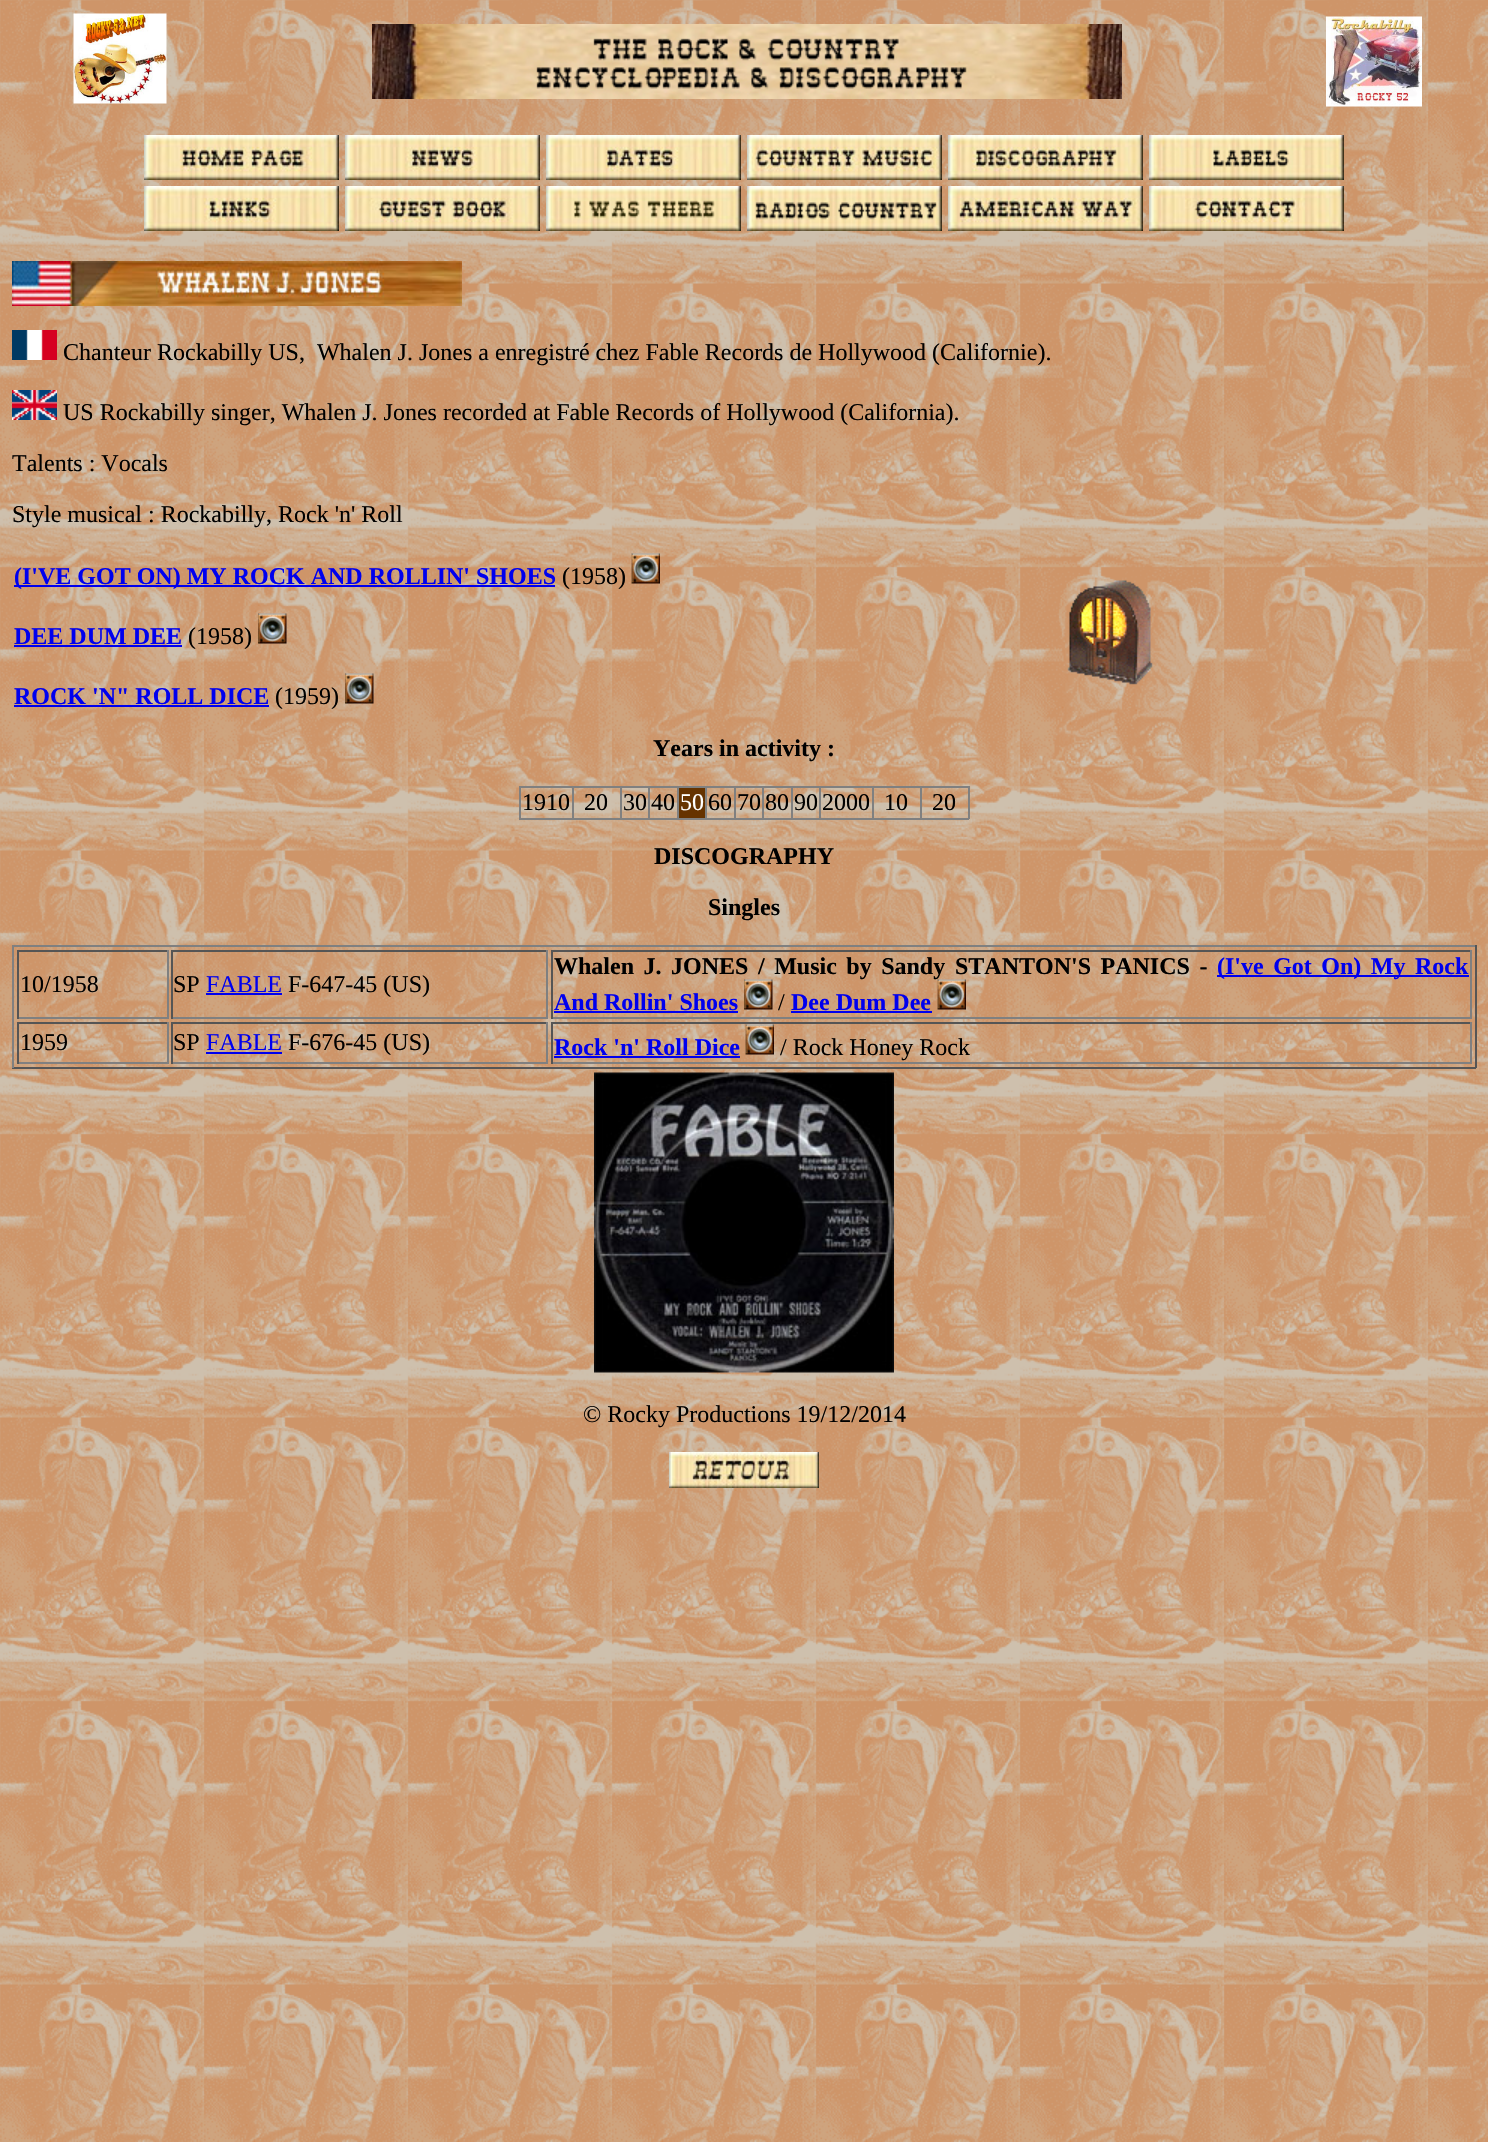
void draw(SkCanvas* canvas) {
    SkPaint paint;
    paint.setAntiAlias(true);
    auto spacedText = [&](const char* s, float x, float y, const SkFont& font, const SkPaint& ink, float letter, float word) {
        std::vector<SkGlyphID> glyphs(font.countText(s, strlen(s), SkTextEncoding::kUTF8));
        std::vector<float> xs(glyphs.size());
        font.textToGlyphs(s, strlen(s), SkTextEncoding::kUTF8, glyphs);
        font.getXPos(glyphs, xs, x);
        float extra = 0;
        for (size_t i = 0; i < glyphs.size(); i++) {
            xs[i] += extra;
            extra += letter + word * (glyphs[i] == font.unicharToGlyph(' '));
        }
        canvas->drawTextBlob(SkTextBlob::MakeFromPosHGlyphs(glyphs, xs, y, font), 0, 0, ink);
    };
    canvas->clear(0xFFFFFFFF);
    canvas->drawImageRect(SkImages::DeferredFromEncodedData(SkData::MakeFromFileName("img1.png")), SkRect::MakeXYWH(0, 0, 1488, 2142), SkSamplingOptions());
    canvas->drawImageRect(SkImages::DeferredFromEncodedData(SkData::MakeFromFileName("img2.png")), SkRect::MakeXYWH(73, 13, 94, 91), SkSamplingOptions());
    canvas->drawImageRect(SkImages::DeferredFromEncodedData(SkData::MakeFromFileName("img3.png")), SkRect::MakeXYWH(372, 24, 750, 75), SkSamplingOptions());
    canvas->drawImageRect(SkImages::DeferredFromEncodedData(SkData::MakeFromFileName("img4.png")), SkRect::MakeXYWH(1326, 16, 96, 91), SkSamplingOptions());
    canvas->drawImageRect(SkImages::DeferredFromEncodedData(SkData::MakeFromFileName("img5.png")), SkRect::MakeXYWH(144, 135, 195, 45), SkSamplingOptions());
    canvas->drawImageRect(SkImages::DeferredFromEncodedData(SkData::MakeFromFileName("img6.png")), SkRect::MakeXYWH(345, 135, 195, 45), SkSamplingOptions());
    canvas->drawImageRect(SkImages::DeferredFromEncodedData(SkData::MakeFromFileName("img7.png")), SkRect::MakeXYWH(546, 135, 195, 45), SkSamplingOptions());
    canvas->drawImageRect(SkImages::DeferredFromEncodedData(SkData::MakeFromFileName("img8.png")), SkRect::MakeXYWH(747, 135, 195, 45), SkSamplingOptions());
    canvas->drawImageRect(SkImages::DeferredFromEncodedData(SkData::MakeFromFileName("img9.png")), SkRect::MakeXYWH(948, 135, 195, 45), SkSamplingOptions());
    canvas->drawImageRect(SkImages::DeferredFromEncodedData(SkData::MakeFromFileName("img10.png")), SkRect::MakeXYWH(1149, 135, 195, 45), SkSamplingOptions());
    canvas->drawImageRect(SkImages::DeferredFromEncodedData(SkData::MakeFromFileName("img11.png")), SkRect::MakeXYWH(144, 186, 195, 45), SkSamplingOptions());
    canvas->drawImageRect(SkImages::DeferredFromEncodedData(SkData::MakeFromFileName("img12.png")), SkRect::MakeXYWH(345, 186, 195, 45), SkSamplingOptions());
    canvas->drawImageRect(SkImages::DeferredFromEncodedData(SkData::MakeFromFileName("img13.png")), SkRect::MakeXYWH(546, 186, 195, 45), SkSamplingOptions());
    canvas->drawImageRect(SkImages::DeferredFromEncodedData(SkData::MakeFromFileName("img14.png")), SkRect::MakeXYWH(747, 186, 195, 45), SkSamplingOptions());
    canvas->drawImageRect(SkImages::DeferredFromEncodedData(SkData::MakeFromFileName("img15.png")), SkRect::MakeXYWH(948, 186, 195, 45), SkSamplingOptions());
    canvas->drawImageRect(SkImages::DeferredFromEncodedData(SkData::MakeFromFileName("img16.png")), SkRect::MakeXYWH(1149, 186, 195, 45), SkSamplingOptions());
    canvas->drawImageRect(SkImages::DeferredFromEncodedData(SkData::MakeFromFileName("img17.png")), SkRect::MakeXYWH(12, 261, 450, 45), SkSamplingOptions());
    canvas->drawImageRect(SkImages::DeferredFromEncodedData(SkData::MakeFromFileName("img18.png")), SkRect::MakeXYWH(12, 330, 45, 30), SkSamplingOptions());
    SkFont font1(fontMgr->matchFamilyStyle("Liberation Serif", SkFontStyle::Normal()), 24);
    font1.setSubpixel(true);
    paint.setColor(0xFF000000);
    canvas->drawString("Chanteur Rockabilly US,  Whalen J. Jones a enregistré chez Fable Records de Hollywood (Californie).", 63, 360, font1, paint);
    canvas->drawImageRect(SkImages::DeferredFromEncodedData(SkData::MakeFromFileName("img19.png")), SkRect::MakeXYWH(12, 390, 45, 30), SkSamplingOptions());
    canvas->drawString("US Rockabilly singer, Whalen J. Jones recorded at Fable Records of Hollywood (California).", 63, 420, font1, paint);
    canvas->drawString("Talents : Vocals", 12, 471, font1, paint);
    canvas->drawString("Style musical : Rockabilly, Rock 'n' Roll", 12, 522, font1, paint);
    paint.setColor(0xFF0000EE);
    canvas->drawRect(SkRect::MakeXYWH(14, 585, 541, 2), paint);
    SkFont font2(fontMgr->matchFamilyStyle("Liberation Serif", SkFontStyle::Bold()), 24);
    font2.setSubpixel(true);
    canvas->drawString("(I'VE GOT ON) MY ROCK AND ROLLIN' SHOES", 14, 584, font2, paint);
    paint.setColor(0xFF000000);
    canvas->drawString("(1958)", 562, 584, font1, paint);
    canvas->drawImageRect(SkImages::DeferredFromEncodedData(SkData::MakeFromFileName("img20.png")), SkRect::MakeXYWH(631, 553, 29, 31), SkSamplingOptions());
    paint.setColor(0xFF0000EE);
    canvas->drawString("DEE DUM DEE", 14, 644, font2, paint);
    canvas->drawRect(SkRect::MakeXYWH(14, 645, 168, 2), paint);
    paint.setColor(0xFF000000);
    canvas->drawString("(1958)", 188, 644, font1, paint);
    canvas->drawImageRect(SkImages::DeferredFromEncodedData(SkData::MakeFromFileName("img21.png")), SkRect::MakeXYWH(258, 613, 29, 31), SkSamplingOptions());
    paint.setColor(0xFF0000EE);
    canvas->drawString("ROCK 'N\" ROLL DICE", 14, 704, font2, paint);
    canvas->drawRect(SkRect::MakeXYWH(14, 705, 255, 2), paint);
    paint.setColor(0xFF000000);
    canvas->drawString("(1959)", 275, 704, font1, paint);
    canvas->drawImageRect(SkImages::DeferredFromEncodedData(SkData::MakeFromFileName("img22.png")), SkRect::MakeXYWH(345, 673, 29, 31), SkSamplingOptions());
    canvas->drawImageRect(SkImages::DeferredFromEncodedData(SkData::MakeFromFileName("img23.png")), SkRect::MakeXYWH(1067, 580, 86, 105), SkSamplingOptions());
    canvas->drawString("Years in activity :", 653, 756, font2, paint);
    paint.setColor(0xFF808080);
    canvas->drawRect(SkRect::MakeXYWH(519, 786, 450, 2), paint);
    canvas->drawRect(SkRect::MakeXYWH(968, 786, 2, 33), paint);
    canvas->drawRect(SkRect::MakeXYWH(519, 818, 450, 2), paint);
    canvas->drawRect(SkRect::MakeXYWH(519, 786, 2, 33), paint);
    paint.setColor(0xFF000000);
    canvas->drawString("1910", 522, 810, font1, paint);
    paint.setColor(0xFF808080);
    canvas->drawRect(SkRect::MakeXYWH(572, 786, 2, 33), paint);
    paint.setColor(0xFF000000);
    canvas->drawString("20", 584, 810, font1, paint);
    paint.setColor(0xFF808080);
    canvas->drawRect(SkRect::MakeXYWH(620, 786, 2, 33), paint);
    paint.setColor(0xFF000000);
    canvas->drawString("30", 623, 810, font1, paint);
    paint.setColor(0xFF808080);
    canvas->drawRect(SkRect::MakeXYWH(648, 786, 2, 33), paint);
    paint.setColor(0xFF000000);
    canvas->drawString("40", 651, 810, font1, paint);
    paint.setColor(0xFF663300);
    canvas->drawRect(SkRect::MakeXYWH(679, 788, 26, 30), paint);
    paint.setColor(0xFF808080);
    canvas->drawRect(SkRect::MakeXYWH(677, 786, 2, 33), paint);
    paint.setColor(0xFFFFFFFF);
    canvas->drawString("50", 680, 810, font1, paint);
    paint.setColor(0xFF808080);
    canvas->drawRect(SkRect::MakeXYWH(705, 786, 2, 33), paint);
    paint.setColor(0xFF000000);
    canvas->drawString("60", 708, 810, font1, paint);
    paint.setColor(0xFF808080);
    canvas->drawRect(SkRect::MakeXYWH(734, 786, 2, 33), paint);
    paint.setColor(0xFF000000);
    canvas->drawString("70", 737, 810, font1, paint);
    paint.setColor(0xFF808080);
    canvas->drawRect(SkRect::MakeXYWH(762, 786, 2, 33), paint);
    paint.setColor(0xFF000000);
    canvas->drawString("80", 765, 810, font1, paint);
    paint.setColor(0xFF808080);
    canvas->drawRect(SkRect::MakeXYWH(791, 786, 2, 33), paint);
    paint.setColor(0xFF000000);
    canvas->drawString("90", 794, 810, font1, paint);
    paint.setColor(0xFF808080);
    canvas->drawRect(SkRect::MakeXYWH(819, 786, 2, 33), paint);
    paint.setColor(0xFF000000);
    canvas->drawString("2000", 822, 810, font1, paint);
    paint.setColor(0xFF808080);
    canvas->drawRect(SkRect::MakeXYWH(872, 786, 2, 33), paint);
    paint.setColor(0xFF000000);
    canvas->drawString("10", 884, 810, font1, paint);
    paint.setColor(0xFF808080);
    canvas->drawRect(SkRect::MakeXYWH(920, 786, 2, 33), paint);
    paint.setColor(0xFF000000);
    canvas->drawString("20", 932, 810, font1, paint);
    canvas->drawString("DISCOGRAPHY", 654, 864, font2, paint);
    canvas->drawString("Singles", 708, 915, font2, paint);
    paint.setColor(0xFF808080);
    canvas->drawRect(SkRect::MakeXYWH(12, 945, 1464, 2), paint);
    paint.setColor(0xFF555555);
    canvas->drawRect(SkRect::MakeXYWH(1475, 945, 2, 123), paint);
    canvas->drawRect(SkRect::MakeXYWH(12, 1067, 1464, 2), paint);
    paint.setColor(0xFF808080);
    canvas->drawRect(SkRect::MakeXYWH(12, 945, 2, 123), paint);
    paint.setColor(0xFF555555);
    canvas->drawRect(SkRect::MakeXYWH(17, 950, 151, 2), paint);
    paint.setColor(0xFF808080);
    canvas->drawRect(SkRect::MakeXYWH(167, 950, 2, 69), paint);
    canvas->drawRect(SkRect::MakeXYWH(17, 1017, 151, 2), paint);
    paint.setColor(0xFF555555);
    canvas->drawRect(SkRect::MakeXYWH(17, 950, 2, 69), paint);
    paint.setColor(0xFF000000);
    canvas->drawString("10/1958", 20, 992, font1, paint);
    paint.setColor(0xFF555555);
    canvas->drawRect(SkRect::MakeXYWH(171, 950, 377, 2), paint);
    paint.setColor(0xFF808080);
    canvas->drawRect(SkRect::MakeXYWH(546, 950, 2, 69), paint);
    canvas->drawRect(SkRect::MakeXYWH(171, 1017, 377, 2), paint);
    paint.setColor(0xFF555555);
    canvas->drawRect(SkRect::MakeXYWH(171, 950, 2, 69), paint);
    paint.setColor(0xFF000000);
    canvas->drawString("SP", 173, 992, font1, paint);
    paint.setColor(0xFF0000EE);
    canvas->drawString("FABLE", 206, 992, font1, paint);
    canvas->drawRect(SkRect::MakeXYWH(206, 993, 76, 2), paint);
    paint.setColor(0xFF000000);
    canvas->drawString("F-647-45 (US)", 288, 992, font1, paint);
    paint.setColor(0xFF555555);
    canvas->drawRect(SkRect::MakeXYWH(551, 950, 921, 2), paint);
    paint.setColor(0xFF808080);
    canvas->drawRect(SkRect::MakeXYWH(1470, 950, 2, 69), paint);
    canvas->drawRect(SkRect::MakeXYWH(551, 1017, 921, 2), paint);
    paint.setColor(0xFF555555);
    canvas->drawRect(SkRect::MakeXYWH(551, 950, 2, 69), paint);
    paint.setColor(0xFF000000);
    spacedText("Whalen J.", 554, 974, font2, paint, 0, 3.5f);
    canvas->drawString("JONES", 671, 974, font2, paint);
    spacedText("/ Music by Sandy", 758, 974, font2, paint, 0, 3.5f);
    spacedText("STANTON'S PANICS -", 955, 974, font2, paint, 0, 3.5f);
    paint.setColor(0xFF0000EE);
    canvas->drawRect(SkRect::MakeXYWH(1217, 975, 252, 2), paint);
    spacedText("(I've Got On) My Rock", 1217, 974, font2, paint, 0, 3.5f);
    canvas->drawString("And Rollin' Shoes", 554, 1010, font2, paint);
    canvas->drawRect(SkRect::MakeXYWH(554, 1011, 184, 2), paint);
    canvas->drawImageRect(SkImages::DeferredFromEncodedData(SkData::MakeFromFileName("img24.png")), SkRect::MakeXYWH(744, 979, 29, 31), SkSamplingOptions());
    paint.setColor(0xFF000000);
    canvas->drawString("/", 778, 1010, font1, paint);
    paint.setColor(0xFF0000EE);
    canvas->drawString("Dee Dum Dee", 791, 1010, font2, paint);
    canvas->drawRect(SkRect::MakeXYWH(791, 1011, 141, 2), paint);
    canvas->drawImageRect(SkImages::DeferredFromEncodedData(SkData::MakeFromFileName("img25.png")), SkRect::MakeXYWH(937, 979, 29, 31), SkSamplingOptions());
    paint.setColor(0xFF555555);
    canvas->drawRect(SkRect::MakeXYWH(17, 1022, 151, 2), paint);
    paint.setColor(0xFF808080);
    canvas->drawRect(SkRect::MakeXYWH(167, 1022, 2, 42), paint);
    canvas->drawRect(SkRect::MakeXYWH(17, 1062, 151, 2), paint);
    paint.setColor(0xFF555555);
    canvas->drawRect(SkRect::MakeXYWH(17, 1022, 2, 42), paint);
    paint.setColor(0xFF000000);
    canvas->drawString("1959", 20, 1050, font1, paint);
    paint.setColor(0xFF555555);
    canvas->drawRect(SkRect::MakeXYWH(171, 1022, 377, 2), paint);
    paint.setColor(0xFF808080);
    canvas->drawRect(SkRect::MakeXYWH(546, 1022, 2, 42), paint);
    canvas->drawRect(SkRect::MakeXYWH(171, 1062, 377, 2), paint);
    paint.setColor(0xFF555555);
    canvas->drawRect(SkRect::MakeXYWH(171, 1022, 2, 42), paint);
    paint.setColor(0xFF000000);
    canvas->drawString("SP", 173, 1050, font1, paint);
    paint.setColor(0xFF0000EE);
    canvas->drawString("FABLE", 206, 1050, font1, paint);
    canvas->drawRect(SkRect::MakeXYWH(206, 1052, 76, 2), paint);
    paint.setColor(0xFF000000);
    canvas->drawString("F-676-45 (US)", 288, 1050, font1, paint);
    paint.setColor(0xFF555555);
    canvas->drawRect(SkRect::MakeXYWH(551, 1022, 921, 2), paint);
    paint.setColor(0xFF808080);
    canvas->drawRect(SkRect::MakeXYWH(1470, 1022, 2, 42), paint);
    canvas->drawRect(SkRect::MakeXYWH(551, 1062, 921, 2), paint);
    paint.setColor(0xFF555555);
    canvas->drawRect(SkRect::MakeXYWH(551, 1022, 2, 42), paint);
    paint.setColor(0xFF0000EE);
    canvas->drawString("Rock 'n' Roll Dice", 554, 1055, font2, paint);
    canvas->drawRect(SkRect::MakeXYWH(554, 1056, 186, 2), paint);
    canvas->drawImageRect(SkImages::DeferredFromEncodedData(SkData::MakeFromFileName("img26.png")), SkRect::MakeXYWH(745, 1024, 29, 31), SkSamplingOptions());
    paint.setColor(0xFF000000);
    canvas->drawString("/ Rock Honey Rock", 780, 1055, font1, paint);
    canvas->drawImageRect(SkImages::DeferredFromEncodedData(SkData::MakeFromFileName("img27.png")), SkRect::MakeXYWH(594, 1072, 300, 301), SkSamplingOptions());
    canvas->drawString("© Rocky Productions 19/12/2014", 583, 1422, font1, paint);
    canvas->drawImageRect(SkImages::DeferredFromEncodedData(SkData::MakeFromFileName("img28.png")), SkRect::MakeXYWH(669, 1452, 150, 36), SkSamplingOptions());
}
